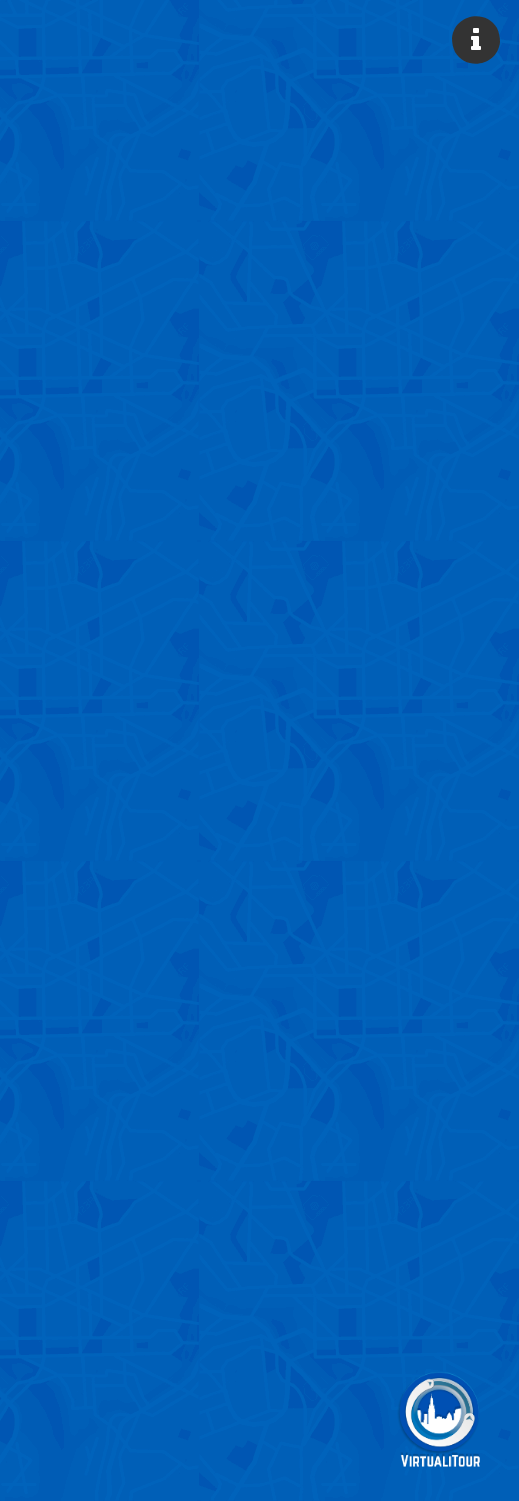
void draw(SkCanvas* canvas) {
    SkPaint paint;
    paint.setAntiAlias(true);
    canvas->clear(0xFFFFFFFF);
    canvas->drawImageRect(SkImages::DeferredFromEncodedData(SkData::MakeFromFileName("img1.png")), SkRect::MakeXYWH(0, 0, 519, 1501), SkSamplingOptions());
    paint.setColor(0xFF333333);
    canvas->drawPath(SkPathBuilder().moveTo(497, 28).cubicTo(499, 32, 500, 37, 500, 42).cubicTo(498, 65, 467, 72, 455, 52).cubicTo(453, 48, 452, 43, 452, 38).cubicTo(454, 15, 485, 8, 497, 28).close().detach(), paint);
    canvas->drawImageRect(SkImages::DeferredFromEncodedData(SkData::MakeFromFileName("img2.png")), SkRect::MakeXYWH(471, 28, 10, 22), SkSamplingOptions());
    canvas->drawImageRect(SkImages::DeferredFromEncodedData(SkData::MakeFromFileName("img3.png")), SkRect::MakeXYWH(397, 1372, 83, 95), SkSamplingOptions());
}
